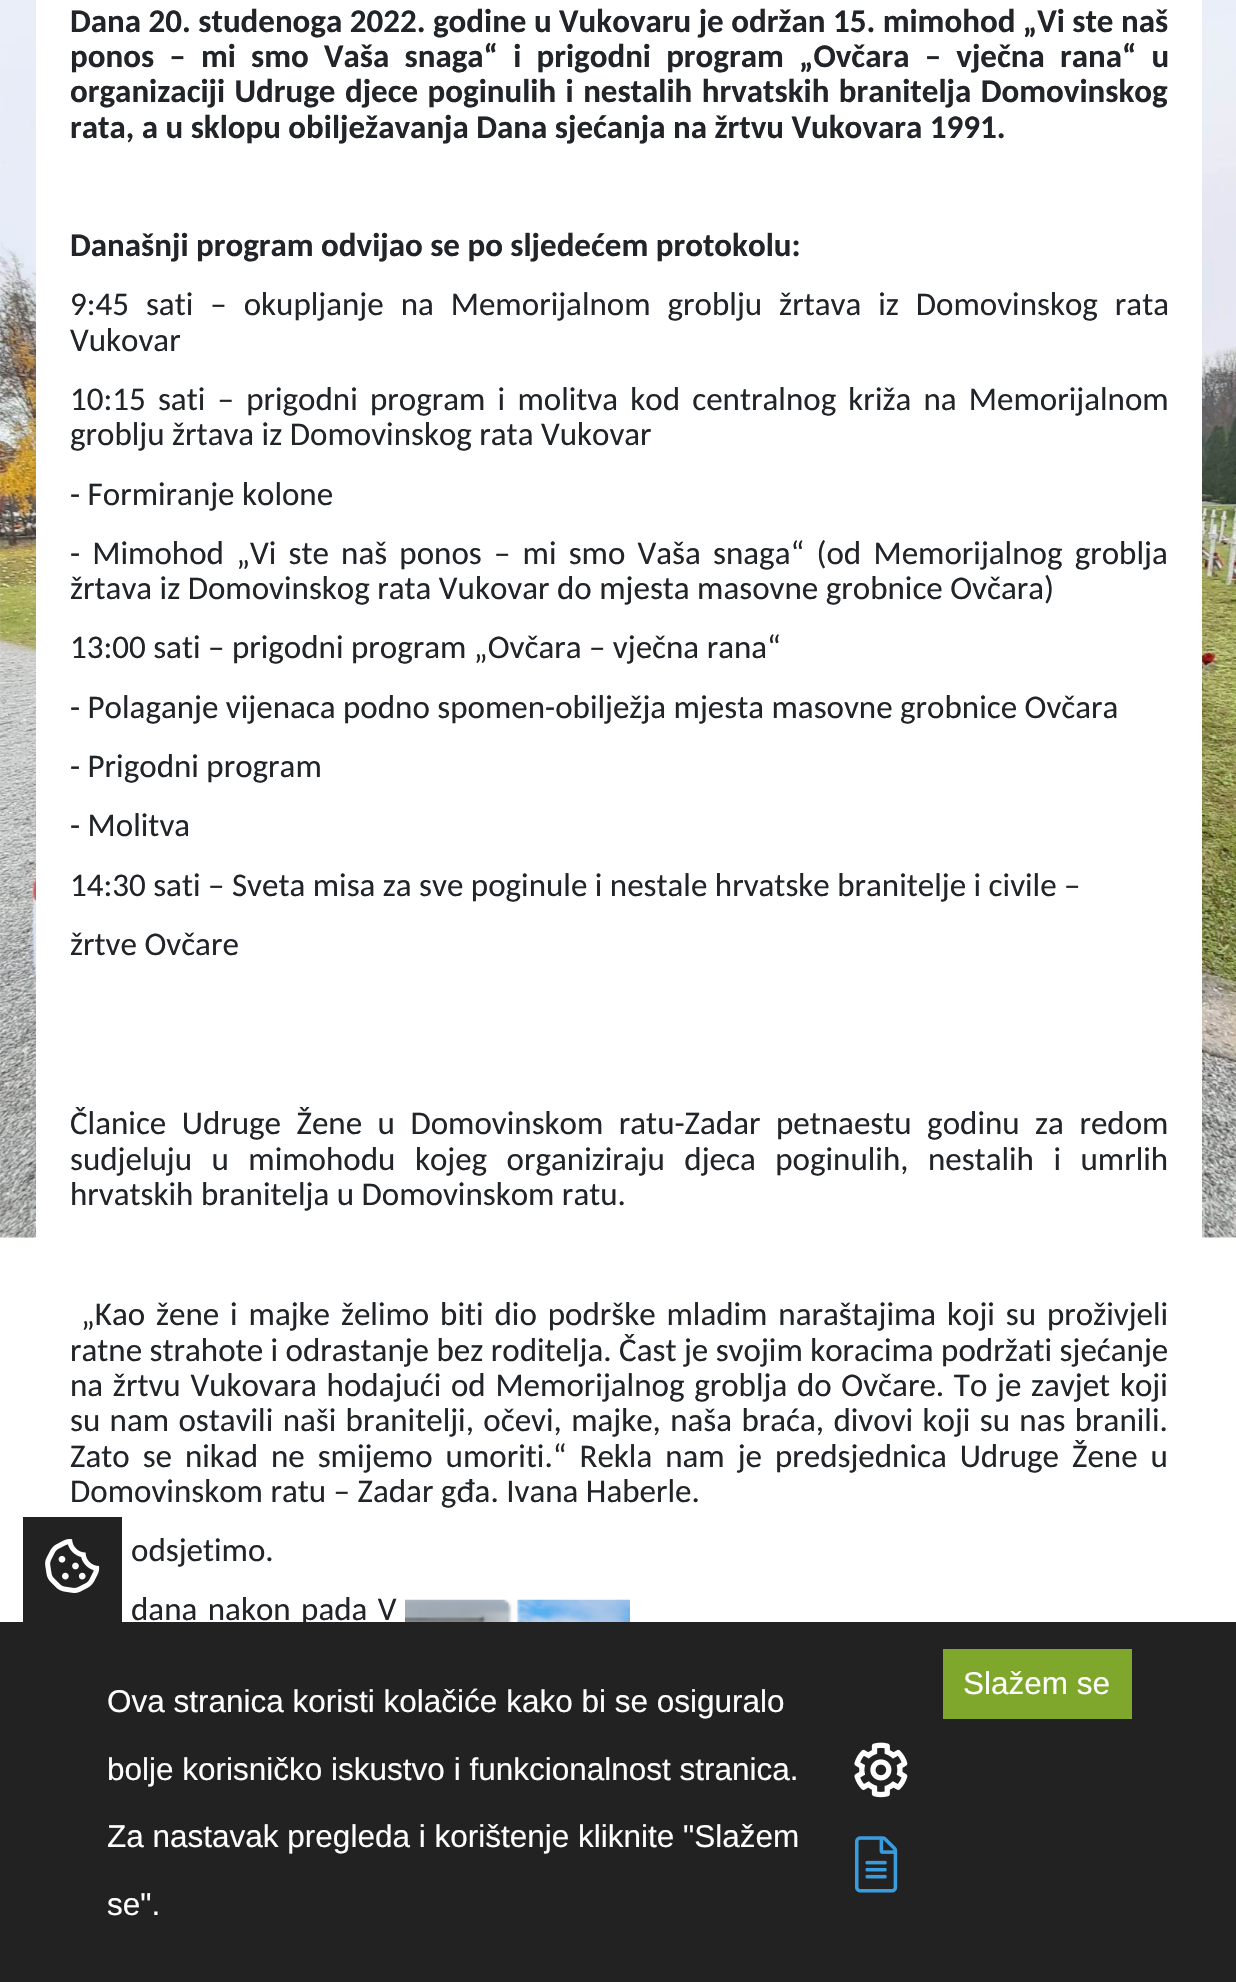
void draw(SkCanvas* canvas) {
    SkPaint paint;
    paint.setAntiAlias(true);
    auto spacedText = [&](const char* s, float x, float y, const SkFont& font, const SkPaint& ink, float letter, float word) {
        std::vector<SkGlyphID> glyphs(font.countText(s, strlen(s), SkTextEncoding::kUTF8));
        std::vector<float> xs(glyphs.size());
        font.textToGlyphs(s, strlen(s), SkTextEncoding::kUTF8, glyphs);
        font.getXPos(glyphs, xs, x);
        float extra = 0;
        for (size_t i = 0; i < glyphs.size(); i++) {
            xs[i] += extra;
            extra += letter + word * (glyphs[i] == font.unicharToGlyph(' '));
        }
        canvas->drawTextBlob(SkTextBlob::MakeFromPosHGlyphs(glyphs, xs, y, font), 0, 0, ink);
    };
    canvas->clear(0xFFFFFFFF);
    canvas->drawImageRect(SkImages::DeferredFromEncodedData(SkData::MakeFromFileName("img1.png")), SkRect::MakeXYWH(0, 0, 1236, 1238), SkSamplingOptions());
    paint.setColor(0xFFFFFFFF);
    canvas->drawRect(SkRect::MakeXYWH(36, 0, 1166, 1238), paint);
    SkFont font1(fontMgr->matchFamilyStyle("Carlito", SkFontStyle::Bold()), 33);
    font1.setSubpixel(true);
    paint.setColor(0xFF212529);
    canvas->drawString("Dana 20. studenoga 2022. godine u Vukovaru je održan 15. mimohod „Vi ste naš", 70, 32, font1, paint);
    spacedText("ponos – mi smo Vaša snaga“ i prigodni program „Ovčara – vječna rana“ u", 70, 67, font1, paint, 0, 7.75f);
    spacedText("organizaciji Udruge djece poginulih i nestalih hrvatskih branitelja Domovinskog", 70, 102, font1, paint, 0, 2);
    canvas->drawString("rata, a u sklopu obilježavanja Dana sjećanja na žrtvu Vukovara 1991.", 70, 138, font1, paint);
    canvas->drawString("Današnji program odvijao se po sljedećem protokolu:", 70, 256, font1, paint);
    SkFont font2(fontMgr->matchFamilyStyle("Carlito", SkFontStyle::Normal()), 33);
    font2.setSubpixel(true);
    spacedText("9:45 sati – okupljanje na Memorijalnom groblju žrtava iz Domovinskog rata", 70, 315, font2, paint, 0, 9.5f);
    canvas->drawString("Vukovar", 70, 351, font2, paint);
    spacedText("10:15 sati – prigodni program i molitva kod centralnog križa na Memorijalnom", 70, 410, font2, paint, 0, 4.75f);
    canvas->drawString("groblju žrtava iz Domovinskog rata Vukovar", 70, 445, font2, paint);
    canvas->drawString("- Formiranje kolone", 70, 505, font2, paint);
    spacedText("- Mimohod „Vi ste naš ponos – mi smo Vaša snaga“ (od Memorijalnog groblja", 70, 564, font2, paint, 0, 4.75f);
    canvas->drawString("žrtava iz Domovinskog rata Vukovar do mjesta masovne grobnice Ovčara)", 70, 599, font2, paint);
    canvas->drawString("13:00 sati – prigodni program „Ovčara – vječna rana“", 70, 658, font2, paint);
    canvas->drawString("- Polaganje vijenaca podno spomen-obilježja mjesta masovne grobnice Ovčara", 70, 718, font2, paint);
    canvas->drawString("- Prigodni program", 70, 777, font2, paint);
    canvas->drawString("- Molitva", 70, 836, font2, paint);
    canvas->drawString("14:30 sati – Sveta misa za sve poginule i nestale hrvatske branitelje i civile –", 70, 896, font2, paint);
    canvas->drawString("žrtve Ovčare", 70, 955, font2, paint);
    spacedText("Članice Udruge Žene u Domovinskom ratu-Zadar petnaestu godinu za redom", 70, 1134, font2, paint, 0, 8);
    spacedText("sudjeluju u mimohodu kojeg organiziraju djeca poginulih, nestalih i umrlih", 70, 1170, font2, paint, 0, 12);
    canvas->drawString("hrvatskih branitelja u Domovinskom ratu.", 70, 1205, font2, paint);
    spacedText("„Kao žene i majke želimo biti dio podrške mladim naraštajima koji su proživjeli", 81, 1325, font2, paint, 0, 3.4f);
    canvas->drawString("ratne strahote i odrastanje bez roditelja. Čast je svojim koracima podržati sjećanje", 70, 1361, font2, paint);
    spacedText("na žrtvu Vukovara hodajući od Memorijalnog groblja do Ovčare. To je zavjet koji", 70, 1396, font2, paint, 0, 2.25f);
    spacedText("su nam ostavili naši branitelji, očevi, majke, naša braća, divovi koji su nas branili.", 70, 1431, font2, paint, 0, 1.9f);
    spacedText("Zato se nikad ne smijemo umoriti.“ Rekla nam je predsjednica Udruge Žene u", 70, 1467, font2, paint, 0, 5.5f);
    canvas->drawString("Domovinskom ratu – Zadar gđa. Ivana Haberle.", 70, 1502, font2, paint);
    canvas->drawString("odsjetimo.", 131, 1561, font2, paint);
    spacedText("dana nakon pada V", 131, 1620, font2, paint, 0, 3);
    canvas->drawImageRect(SkImages::DeferredFromEncodedData(SkData::MakeFromFileName("img2.png")), SkRect::MakeXYWH(405, 1599, 225, 23), SkSamplingOptions());
    paint.setColor(0xFF222222);
    canvas->drawRect(SkRect::MakeXYWH(0, 1622, 1236, 360), paint);
    canvas->drawRect(SkRect::MakeXYWH(23, 1517, 99, 105), paint);
    canvas->drawImageRect(SkImages::DeferredFromEncodedData(SkData::MakeFromFileName("img3.png")), SkRect::MakeXYWH(45, 1539, 55, 54), SkSamplingOptions());
    paint.setColor(0xFF7FA72C);
    canvas->drawRect(SkRect::MakeXYWH(943, 1649, 189, 70), paint);
    SkFont font3(fontMgr->matchFamilyStyle("Liberation Sans", SkFontStyle::Normal()), 31.5f);
    font3.setSubpixel(true);
    paint.setColor(0xFFFFFFFF);
    canvas->drawString("Slažem se", 963, 1694, font3, paint);
    canvas->drawImageRect(SkImages::DeferredFromEncodedData(SkData::MakeFromFileName("img4.png")), SkRect::MakeXYWH(854, 1742, 54, 56), SkSamplingOptions());
    canvas->drawImageRect(SkImages::DeferredFromEncodedData(SkData::MakeFromFileName("img5.png")), SkRect::MakeXYWH(855, 1836, 43, 57), SkSamplingOptions());
    canvas->drawString("Ova stranica koristi kolačiće kako bi se osiguralo", 107, 1712, font3, paint);
    canvas->drawString("bolje korisničko iskustvo i funkcionalnost stranica.", 107, 1780, font3, paint);
    canvas->drawString("Za nastavak pregleda i korištenje kliknite \"Slažem", 107, 1847, font3, paint);
    canvas->drawString("se\".", 107, 1915, font3, paint);
}
